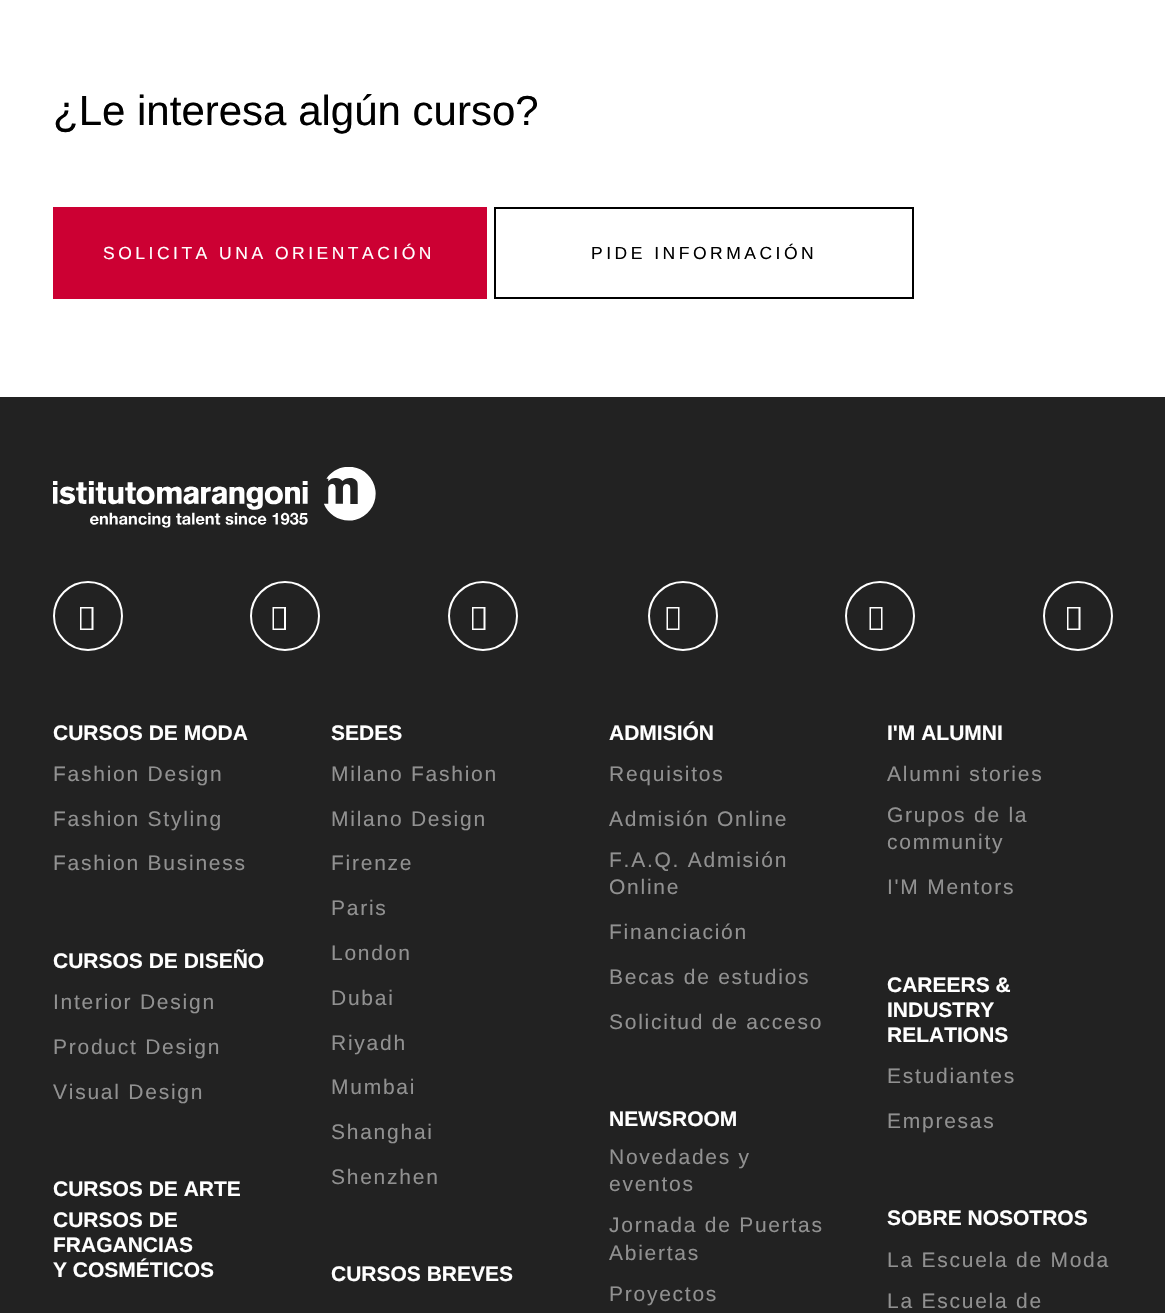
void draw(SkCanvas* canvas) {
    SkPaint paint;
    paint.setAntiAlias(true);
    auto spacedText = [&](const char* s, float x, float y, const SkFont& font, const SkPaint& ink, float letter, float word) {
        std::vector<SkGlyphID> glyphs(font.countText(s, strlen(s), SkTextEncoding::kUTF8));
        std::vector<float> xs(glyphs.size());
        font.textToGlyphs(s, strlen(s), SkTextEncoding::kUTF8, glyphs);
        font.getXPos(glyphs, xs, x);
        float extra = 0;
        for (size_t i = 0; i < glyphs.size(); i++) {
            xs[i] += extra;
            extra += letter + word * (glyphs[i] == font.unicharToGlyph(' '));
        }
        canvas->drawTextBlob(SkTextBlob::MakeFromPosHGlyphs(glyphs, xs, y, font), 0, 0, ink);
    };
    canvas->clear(0xFFFFFFFF);
    SkFont font1(fontMgr->matchFamilyStyle("Liberation Sans", SkFontStyle::Normal()), 42);
    font1.setSubpixel(true);
    paint.setColor(0xFF000000);
    canvas->drawString("¿Le interesa algún curso?", 53, 125, font1, paint);
    paint.setColor(0xFFCC0033);
    canvas->drawRect(SkRect::MakeXYWH(53, 207, 434, 92), paint);
    SkFont font2(fontMgr->matchFamilyStyle("Liberation Sans", SkFontStyle::Normal()), 17.5f);
    font2.setSubpixel(true);
    paint.setColor(0xFFFFFFFF);
    spacedText("SOLICITA UNA ORIENTACIÓN", 103, 259, font2, paint, 3.5f, 0);
    paint.setStyle(SkPaint::kStroke_Style);
    paint.setStrokeWidth(2);
    paint.setColor(0xFF000000);
    canvas->drawRect(SkRect::MakeXYWH(495, 208, 418, 90), paint);
    paint.setStyle(SkPaint::kFill_Style);
    spacedText("PIDE INFORMACIÓN", 591, 259, font2, paint, 3.5f, 0);
    paint.setColor(0xFF222222);
    canvas->drawRect(SkRect::MakeXYWH(0, 397, 1165, 916), paint);
    canvas->drawImageRect(SkImages::DeferredFromEncodedData(SkData::MakeFromFileName("img1.png")), SkRect::MakeXYWH(53, 467, 323, 61), SkSamplingOptions());
    paint.setStyle(SkPaint::kStroke_Style);
    paint.setColor(0xFFFFFFFF);
    canvas->drawCircle(88, 616, 34, paint);
    paint.setStyle(SkPaint::kFill_Style);
    canvas->drawPath(SkPathBuilder().moveTo(80, 630).lineTo(80, 607).lineTo(93.5f, 607).lineTo(93.5f, 630).close().moveTo(81.5f, 628.5f).lineTo(91.5f, 628.5f).lineTo(91.5f, 608.5f).lineTo(81.5f, 608.5f).close().detach(), paint);
    paint.setStyle(SkPaint::kStroke_Style);
    canvas->drawCircle(285, 616, 34, paint);
    paint.setStyle(SkPaint::kFill_Style);
    canvas->drawPath(SkPathBuilder().moveTo(272.5f, 630).lineTo(272.5f, 607).lineTo(286, 607).lineTo(286, 630).close().moveTo(274, 628.5f).lineTo(284, 628.5f).lineTo(284, 608.5f).lineTo(274, 608.5f).close().detach(), paint);
    paint.setStyle(SkPaint::kStroke_Style);
    canvas->drawCircle(483, 616, 34, paint);
    paint.setStyle(SkPaint::kFill_Style);
    canvas->drawPath(SkPathBuilder().moveTo(472, 630).lineTo(472, 607).lineTo(485.5f, 607).lineTo(485.5f, 630).close().moveTo(473.5f, 628.5f).lineTo(483.5f, 628.5f).lineTo(483.5f, 608.5f).lineTo(473.5f, 608.5f).close().detach(), paint);
    paint.setStyle(SkPaint::kStroke_Style);
    canvas->drawCircle(683, 616, 34, paint);
    paint.setStyle(SkPaint::kFill_Style);
    canvas->drawPath(SkPathBuilder().moveTo(666.5f, 630).lineTo(666.5f, 607).lineTo(679.5f, 607).lineTo(679.5f, 630).close().moveTo(668, 628.5f).lineTo(678, 628.5f).lineTo(678, 608.5f).lineTo(668, 608.5f).close().detach(), paint);
    paint.setStyle(SkPaint::kStroke_Style);
    canvas->drawCircle(880, 616, 34, paint);
    paint.setStyle(SkPaint::kFill_Style);
    canvas->drawPath(SkPathBuilder().moveTo(869.5f, 630).lineTo(869.5f, 607).lineTo(882.5f, 607).lineTo(882.5f, 630).close().moveTo(871, 628.5f).lineTo(881, 628.5f).lineTo(881, 608.5f).lineTo(871, 608.5f).close().detach(), paint);
    paint.setStyle(SkPaint::kStroke_Style);
    canvas->drawCircle(1078, 616, 34, paint);
    paint.setStyle(SkPaint::kFill_Style);
    canvas->drawPath(SkPathBuilder().moveTo(1067, 630).lineTo(1067, 607).lineTo(1080.5f, 607).lineTo(1080.5f, 630).close().moveTo(1068.5f, 628.5f).lineTo(1078.5f, 628.5f).lineTo(1078.5f, 608.5f).lineTo(1068.5f, 608.5f).close().detach(), paint);
    SkFont font3(fontMgr->matchFamilyStyle("Liberation Sans", SkFontStyle::Bold()), 21);
    font3.setSubpixel(true);
    canvas->drawString("CURSOS DE MODA", 53, 740, font3, paint);
    SkFont font4(fontMgr->matchFamilyStyle("Liberation Sans", SkFontStyle::Normal()), 21);
    font4.setSubpixel(true);
    paint.setColor(0xFF919191);
    spacedText("Fashion Design", 53, 781, font4, paint, 1.75f, 0);
    spacedText("Fashion Styling", 53, 826, font4, paint, 1.75f, 0);
    spacedText("Fashion Business", 53, 870, font4, paint, 1.75f, 0);
    paint.setColor(0xFFFFFFFF);
    canvas->drawString("CURSOS DE DISEÑO", 53, 968, font3, paint);
    paint.setColor(0xFF919191);
    spacedText("Interior Design", 53, 1009, font4, paint, 1.75f, 0);
    spacedText("Product Design", 53, 1054, font4, paint, 1.75f, 0);
    spacedText("Visual Design", 53, 1099, font4, paint, 1.75f, 0);
    paint.setColor(0xFFFFFFFF);
    canvas->drawString("CURSOS DE ARTE", 53, 1196, font3, paint);
    canvas->drawString("CURSOS DE", 53, 1227, font3, paint);
    canvas->drawString("FRAGANCIAS", 53, 1252, font3, paint);
    canvas->drawString("Y COSMÉTICOS", 53, 1277, font3, paint);
    canvas->drawString("SEDES", 331, 740, font3, paint);
    paint.setColor(0xFF919191);
    spacedText("Milano Fashion", 331, 781, font4, paint, 1.75f, 0);
    spacedText("Milano Design", 331, 826, font4, paint, 1.75f, 0);
    spacedText("Firenze", 331, 870, font4, paint, 1.75f, 0);
    spacedText("Paris", 331, 915, font4, paint, 1.75f, 0);
    spacedText("London", 331, 960, font4, paint, 1.75f, 0);
    spacedText("Dubai", 331, 1005, font4, paint, 1.75f, 0);
    spacedText("Riyadh", 331, 1050, font4, paint, 1.75f, 0);
    spacedText("Mumbai", 331, 1094, font4, paint, 1.75f, 0);
    spacedText("Shanghai", 331, 1139, font4, paint, 1.75f, 0);
    spacedText("Shenzhen", 331, 1184, font4, paint, 1.75f, 0);
    paint.setColor(0xFFFFFFFF);
    canvas->drawString("CURSOS BREVES", 331, 1281, font3, paint);
    canvas->drawString("ADMISIÓN", 609, 740, font3, paint);
    paint.setColor(0xFF919191);
    spacedText("Requisitos", 609, 781, font4, paint, 1.75f, 0);
    spacedText("Admisión Online", 609, 826, font4, paint, 1.75f, 0);
    spacedText("F.A.Q. Admisión", 609, 867, font4, paint, 1.75f, 0);
    spacedText("Online", 609, 894, font4, paint, 1.75f, 0);
    spacedText("Financiación", 609, 939, font4, paint, 1.75f, 0);
    spacedText("Becas de estudios", 609, 984, font4, paint, 1.75f, 0);
    spacedText("Solicitud de acceso", 609, 1029, font4, paint, 1.75f, 0);
    paint.setColor(0xFFFFFFFF);
    canvas->drawString("NEWSROOM", 609, 1126, font3, paint);
    paint.setColor(0xFF919191);
    spacedText("Novedades y", 609, 1164, font4, paint, 1.75f, 0);
    spacedText("eventos", 609, 1191, font4, paint, 1.75f, 0);
    spacedText("Jornada de Puertas", 609, 1232, font4, paint, 1.75f, 0);
    spacedText("Abiertas", 609, 1260, font4, paint, 1.75f, 0);
    spacedText("Proyectos", 609, 1301, font4, paint, 1.75f, 0);
    paint.setColor(0xFFFFFFFF);
    canvas->drawString("I'M ALUMNI", 887, 740, font3, paint);
    paint.setColor(0xFF919191);
    spacedText("Alumni stories", 887, 781, font4, paint, 1.75f, 0);
    spacedText("Grupos de la", 887, 822, font4, paint, 1.75f, 0);
    spacedText("community", 887, 849, font4, paint, 1.75f, 0);
    spacedText("I'M Mentors", 887, 894, font4, paint, 1.75f, 0);
    paint.setColor(0xFFFFFFFF);
    canvas->drawString("CAREERS &", 887, 992, font3, paint);
    canvas->drawString("INDUSTRY", 887, 1017, font3, paint);
    canvas->drawString("RELATIONS", 887, 1042, font3, paint);
    paint.setColor(0xFF919191);
    spacedText("Estudiantes", 887, 1083, font4, paint, 1.75f, 0);
    spacedText("Empresas", 887, 1128, font4, paint, 1.75f, 0);
    paint.setColor(0xFFFFFFFF);
    canvas->drawString("SOBRE NOSOTROS", 887, 1225, font3, paint);
    paint.setColor(0xFF919191);
    spacedText("La Escuela de Moda", 887, 1267, font4, paint, 1.75f, 0);
    spacedText("La Escuela de", 887, 1308, font4, paint, 1.75f, 0);
}
